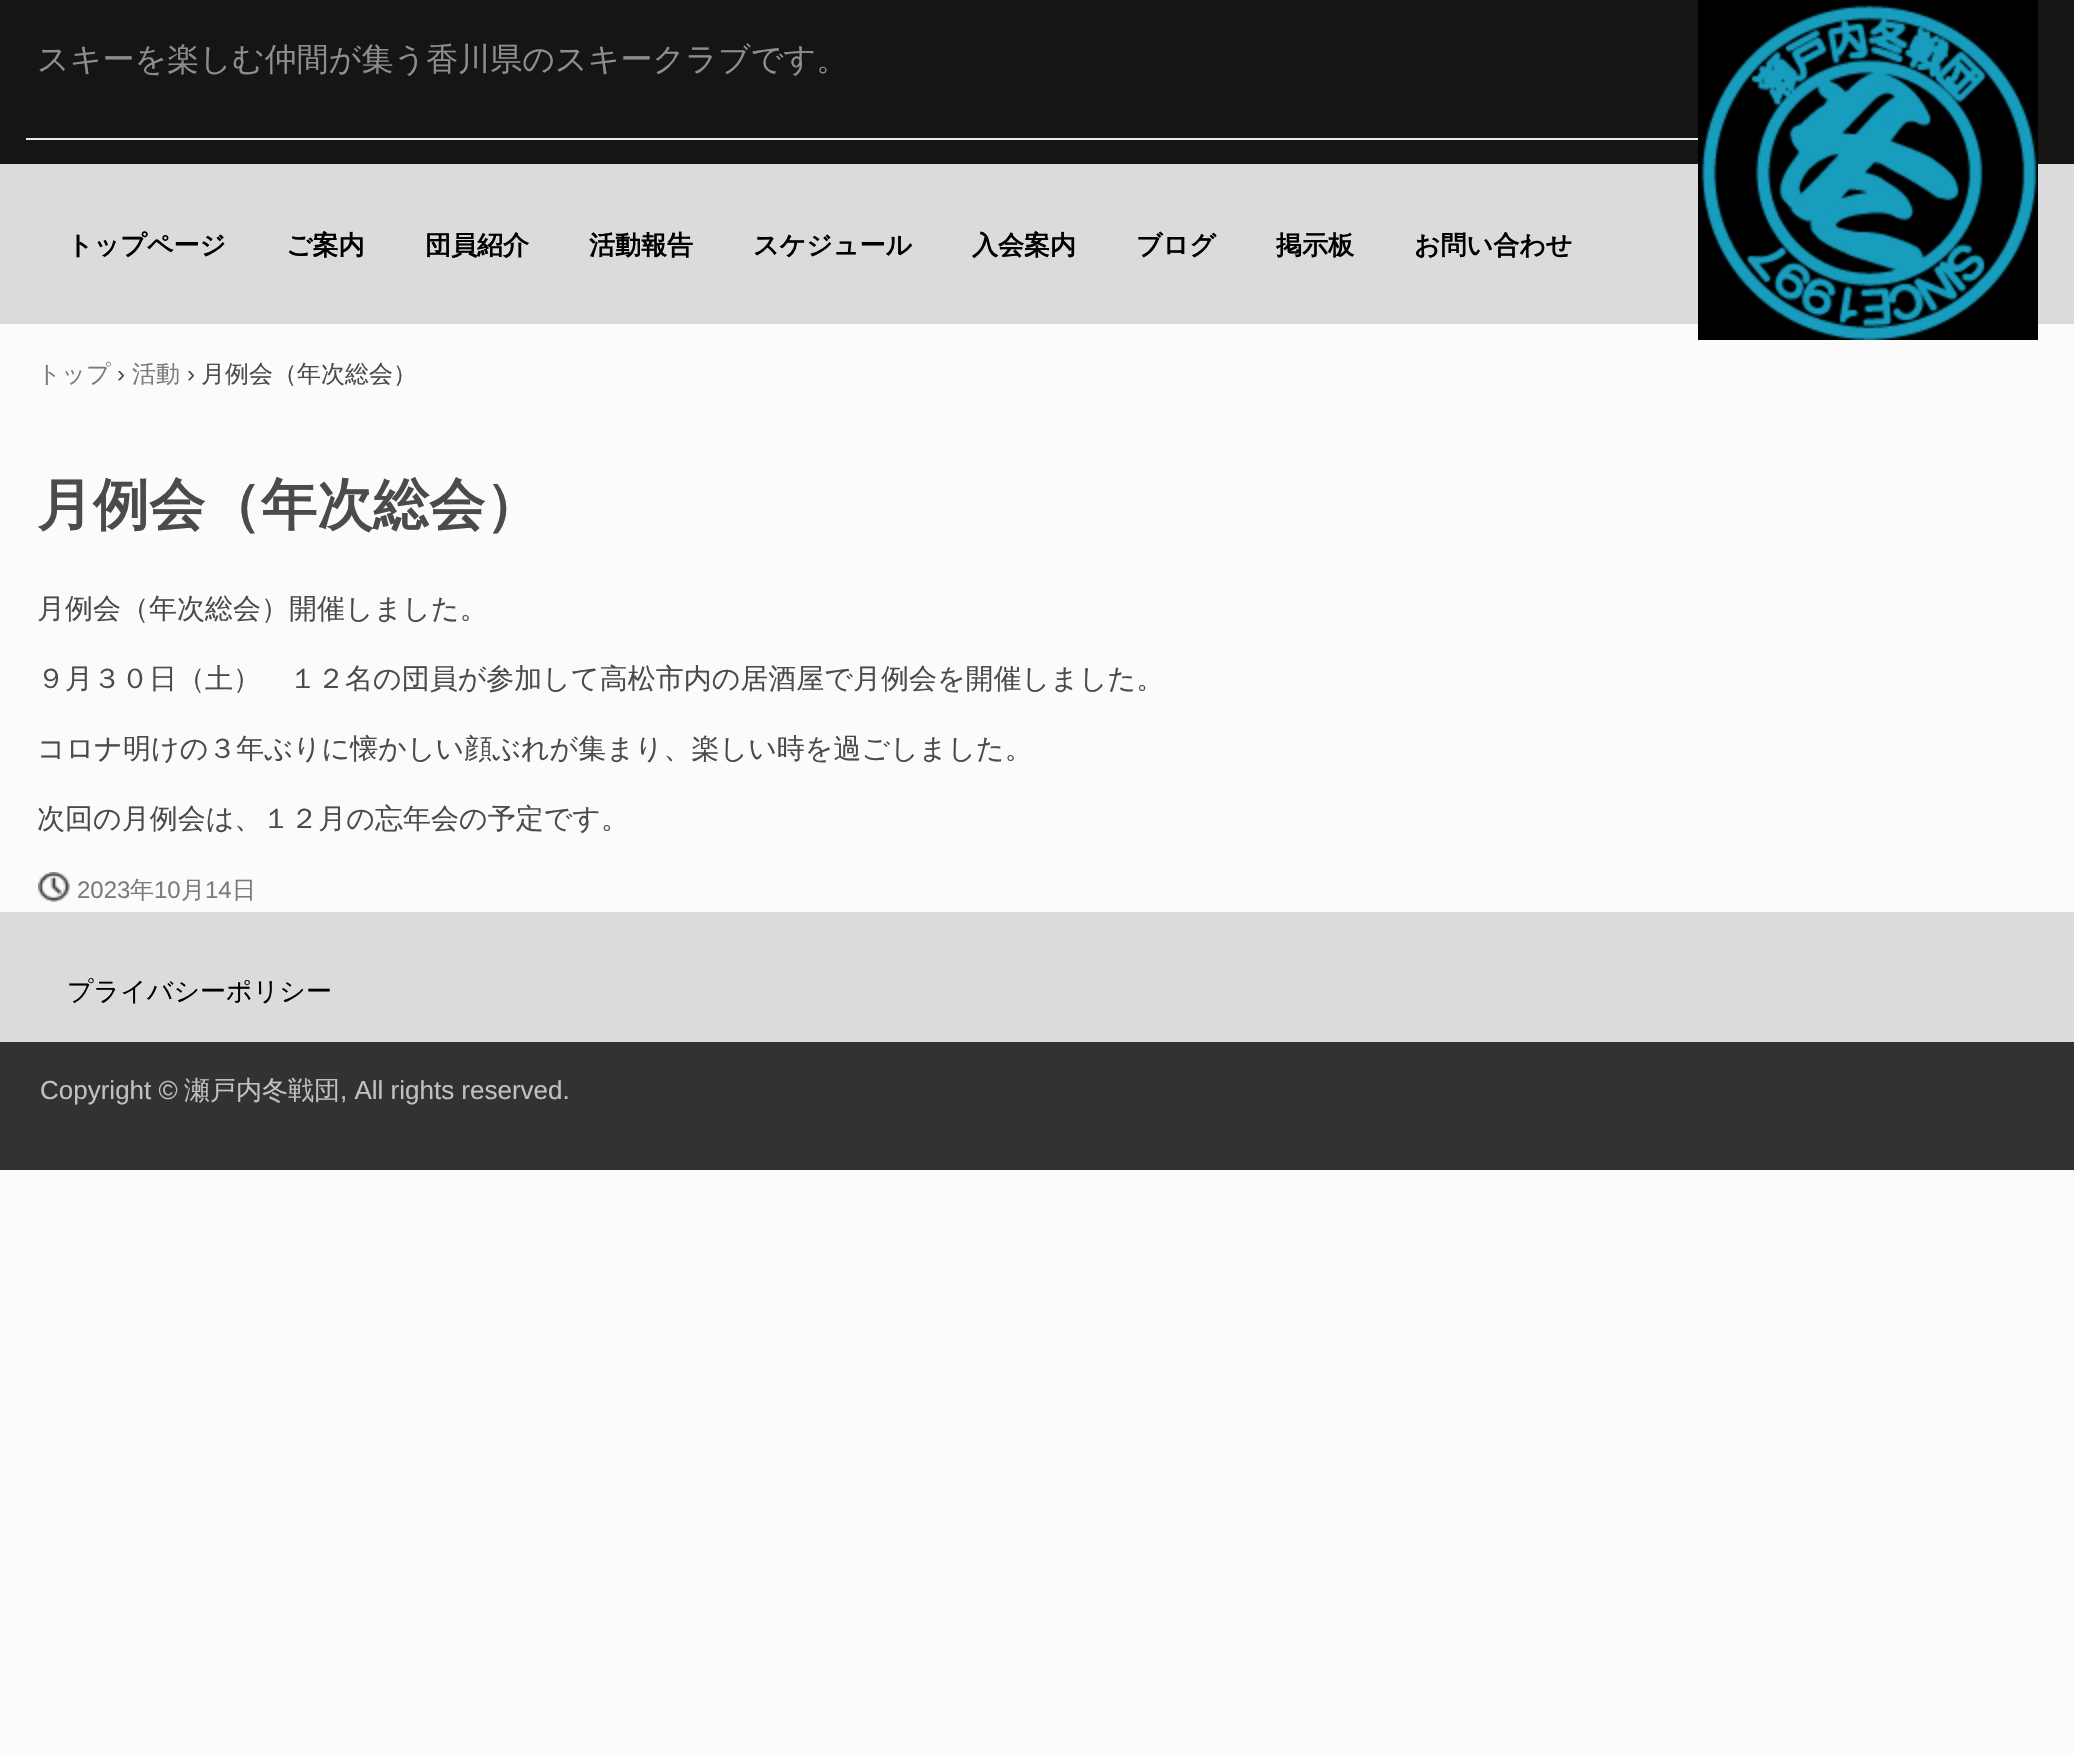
void draw(SkCanvas* canvas) {
    SkPaint paint;
    paint.setAntiAlias(true);
    canvas->clear(0xFFFBFBFB);
    paint.setColor(0xFF151515);
    canvas->drawRect(SkRect::MakeXYWH(0, 0, 2074, 164), paint);
    SkFont font1(fontMgr->matchFamilyStyle("WenQuanYi Zen Hei", SkFontStyle(500, SkFontStyle::kNormal_Width, SkFontStyle::kUpright_Slant)), 32);
    font1.setSubpixel(true);
    paint.setColor(0xFF8C8D90);
    canvas->drawString("スキーを楽しむ仲間が集う香川県のスキークラブです。", 37, 70, font1, paint);
    paint.setColor(0xFFEAEAEA);
    canvas->drawRect(SkRect::MakeXYWH(26, 138, 1678, 2), paint);
    paint.setColor(0xFFDBDBDB);
    canvas->drawRect(SkRect::MakeXYWH(0, 164, 2074, 160), paint);
    canvas->drawImageRect(SkImages::DeferredFromEncodedData(SkData::MakeFromFileName("img1.png")), SkRect::MakeXYWH(1698, 0, 340, 340), SkSamplingOptions());
    SkFont font2(fontMgr->matchFamilyStyle("WenQuanYi Zen Hei", SkFontStyle::Bold()), 26);
    font2.setSubpixel(true);
    paint.setColor(0xFF000000);
    canvas->drawString("トップページ", 67, 254, font2, paint);
    canvas->drawString("ご案内", 286, 254, font2, paint);
    canvas->drawString("団員紹介", 425, 254, font2, paint);
    canvas->drawString("活動報告", 589, 254, font2, paint);
    canvas->drawString("スケジュール", 753, 254, font2, paint);
    canvas->drawString("入会案内", 972, 254, font2, paint);
    canvas->drawString("ブログ", 1136, 254, font2, paint);
    canvas->drawString("掲示板", 1276, 254, font2, paint);
    canvas->drawString("お問い合わせ", 1414, 254, font2, paint);
    SkFont font3(fontMgr->matchFamilyStyle("WenQuanYi Zen Hei", SkFontStyle(500, SkFontStyle::kNormal_Width, SkFontStyle::kUpright_Slant)), 24);
    font3.setSubpixel(true);
    paint.setColor(0xFF7B7B7B);
    canvas->drawString("トップ", 37, 382, font3, paint);
    SkFont font4(fontMgr->matchFamilyStyle("Liberation Sans", SkFontStyle::Normal()), 24);
    font4.setSubpixel(true);
    paint.setColor(0xFF4B4B4B);
    canvas->drawString("›", 117, 382, font4, paint);
    paint.setColor(0xFF7B7B7B);
    canvas->drawString("活動", 132, 382, font3, paint);
    paint.setColor(0xFF4B4B4B);
    canvas->drawString("›", 187, 382, font4, paint);
    canvas->drawString("月例会（年次総会）", 201, 382, font3, paint);
    SkFont font5(fontMgr->matchFamilyStyle("WenQuanYi Zen Hei", SkFontStyle::Bold()), 56);
    font5.setSubpixel(true);
    canvas->drawString("月例会（年次総会）", 37, 524, font5, paint);
    SkFont font6(fontMgr->matchFamilyStyle("WenQuanYi Zen Hei", SkFontStyle(500, SkFontStyle::kNormal_Width, SkFontStyle::kUpright_Slant)), 28);
    font6.setSubpixel(true);
    canvas->drawString("月例会（年次総会）開催しました。", 37, 618, font6, paint);
    canvas->drawString("９月３０日（土）　１２名の団員が参加して高松市内の居酒屋で月例会を開催しました。", 37, 688, font6, paint);
    canvas->drawString("コロナ明けの３年ぶりに懐かしい顔ぶれが集まり、楽しい時を過ごしました。", 37, 758, font6, paint);
    canvas->drawString("次回の月例会は、１２月の忘年会の予定です。", 37, 828, font6, paint);
    canvas->drawImageRect(SkImages::DeferredFromEncodedData(SkData::MakeFromFileName("img2.png")), SkRect::MakeXYWH(38, 872, 32, 30), SkSamplingOptions());
    paint.setColor(0xFF7B7B7B);
    canvas->drawString("2023", 77, 898, font4, paint);
    canvas->drawString("年", 130, 898, font3, paint);
    canvas->drawString("10", 154, 898, font4, paint);
    canvas->drawString("月", 181, 898, font3, paint);
    canvas->drawString("14", 205, 898, font4, paint);
    canvas->drawString("日", 232, 898, font3, paint);
    paint.setColor(0xFF323232);
    canvas->drawRect(SkRect::MakeXYWH(0, 1042, 2074, 128), paint);
    paint.setColor(0xFFDBDBDB);
    canvas->drawRect(SkRect::MakeXYWH(0, 912, 2074, 130), paint);
    SkFont font7(fontMgr->matchFamilyStyle("WenQuanYi Zen Hei", SkFontStyle(500, SkFontStyle::kNormal_Width, SkFontStyle::kUpright_Slant)), 26);
    font7.setSubpixel(true);
    paint.setColor(0xFF000000);
    canvas->drawString("プライバシーポリシー", 67, 1000, font7, paint);
    SkFont font8(fontMgr->matchFamilyStyle("Liberation Sans", SkFontStyle::Normal()), 26);
    font8.setSubpixel(true);
    paint.setColor(0xFFC0C0C0);
    canvas->drawString("Copyright ©", 40, 1099, font8, paint);
    canvas->drawString("瀬戸内冬戦団", 184, 1099, font7, paint);
    canvas->drawString(", All rights reserved.", 340, 1099, font8, paint);
}
